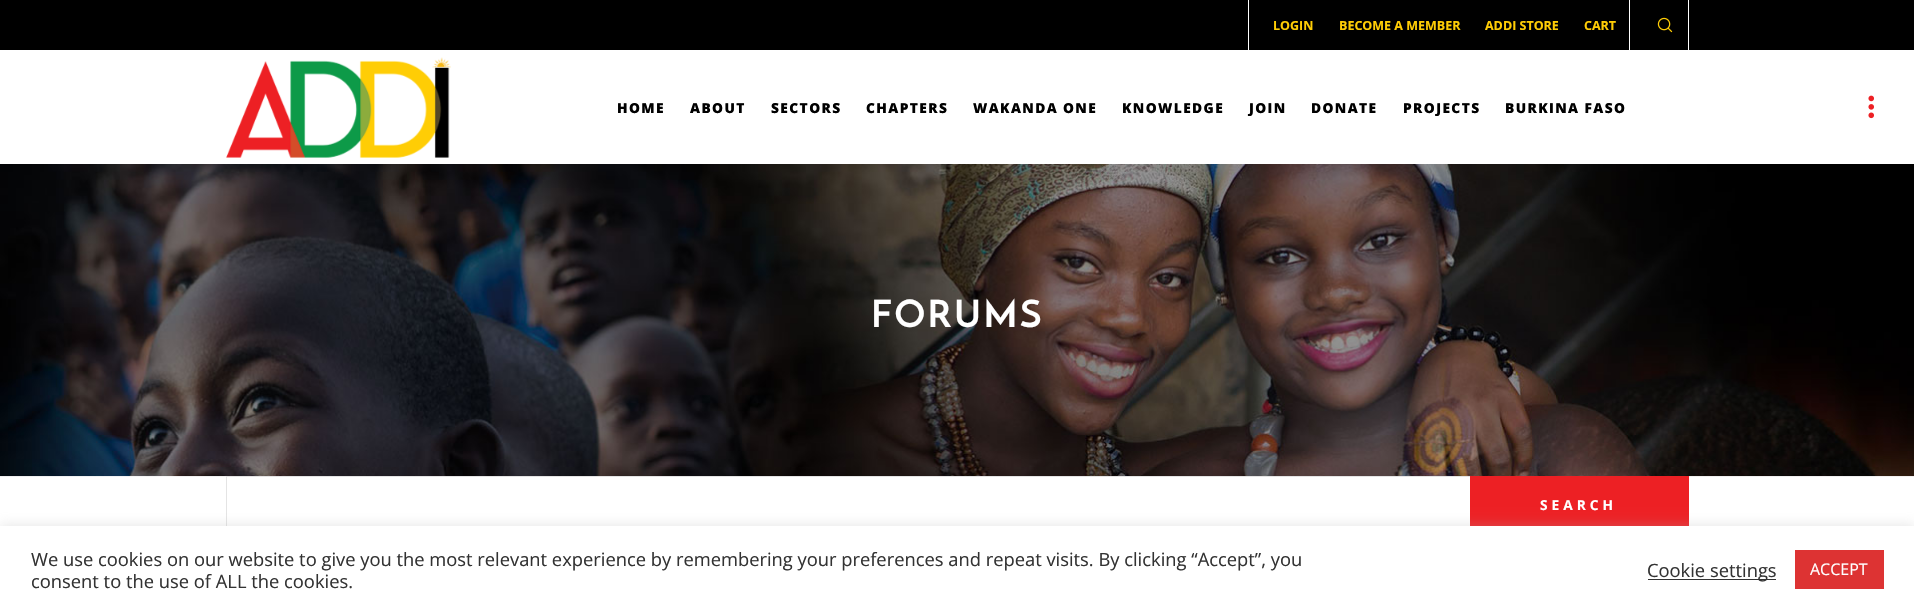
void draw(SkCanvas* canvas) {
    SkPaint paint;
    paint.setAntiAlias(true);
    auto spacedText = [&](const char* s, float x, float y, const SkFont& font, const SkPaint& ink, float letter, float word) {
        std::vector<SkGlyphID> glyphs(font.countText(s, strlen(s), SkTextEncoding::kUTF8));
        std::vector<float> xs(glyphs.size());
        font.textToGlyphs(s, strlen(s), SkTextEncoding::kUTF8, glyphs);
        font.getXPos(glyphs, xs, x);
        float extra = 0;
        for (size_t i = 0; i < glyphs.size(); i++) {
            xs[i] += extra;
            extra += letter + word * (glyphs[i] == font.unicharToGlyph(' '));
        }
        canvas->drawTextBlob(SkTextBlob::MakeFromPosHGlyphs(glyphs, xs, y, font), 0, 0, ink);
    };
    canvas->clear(0xFFFFFFFF);
    paint.setColor(0xFF000000);
    canvas->drawRect(SkRect::MakeXYWH(0, 0, 1914, 50), paint);
    paint.setColor(0xFFFFFFFF);
    canvas->drawRect(SkRect::MakeXYWH(1688, 0, 1, 50), paint);
    canvas->drawRect(SkRect::MakeXYWH(1248, 0, 1, 50), paint);
    SkFont font1(fontMgr->matchFamilyStyle("Open Sans", SkFontStyle::Bold()), 12.5f);
    font1.setSubpixel(true);
    paint.setColor(0xFFFFCD05);
    canvas->drawString("LOGIN", 1273, 30, font1, paint);
    canvas->drawString("BECOME A MEMBER", 1339, 30, font1, paint);
    canvas->drawString("ADDI STORE", 1485, 30, font1, paint);
    canvas->drawString("CART", 1584, 30, font1, paint);
    paint.setColor(0xFFFFFFFF);
    canvas->drawRect(SkRect::MakeXYWH(1629, 0, 1, 50), paint);
    canvas->drawImageRect(SkImages::DeferredFromEncodedData(SkData::MakeFromFileName("img1.png")), SkRect::MakeXYWH(1657, 17, 16, 16), SkSamplingOptions());
    canvas->drawImageRect(SkImages::DeferredFromEncodedData(SkData::MakeFromFileName("img2.png")), SkRect::MakeXYWH(226, 57, 225, 101), SkSamplingOptions());
    SkFont font2(fontMgr->matchFamilyStyle("Open Sans", SkFontStyle(800, SkFontStyle::kNormal_Width, SkFontStyle::kUpright_Slant)), 13.75f);
    font2.setSubpixel(true);
    paint.setColor(0xFF000000);
    spacedText("HOME", 617, 113, font2, paint, 1.4f, 0);
    spacedText("ABOUT", 690, 113, font2, paint, 1.4f, 0);
    spacedText("SECTORS", 771, 113, font2, paint, 1.4f, 0);
    spacedText("CHAPTERS", 866, 113, font2, paint, 1.4f, 0);
    spacedText("WAKANDA ONE", 973, 113, font2, paint, 1.4f, 0);
    spacedText("KNOWLEDGE", 1122, 113, font2, paint, 1.4f, 0);
    spacedText("JOIN", 1249, 113, font2, paint, 1.4f, 0);
    spacedText("DONATE", 1311, 113, font2, paint, 1.4f, 0);
    spacedText("PROJECTS", 1403, 113, font2, paint, 1.4f, 0);
    spacedText("BURKINA FASO", 1505, 113, font2, paint, 1.4f, 0);
    canvas->drawImageRect(SkImages::DeferredFromEncodedData(SkData::MakeFromFileName("img3.png")), SkRect::MakeXYWH(1868, 95, 6, 24), SkSamplingOptions());
    canvas->drawImageRect(SkImages::DeferredFromEncodedData(SkData::MakeFromFileName("img4.png")), SkRect::MakeXYWH(0, 164, 1914, 313), SkSamplingOptions());
    SkFont font3(fontMgr->matchFamilyStyle("Josefin Sans", SkFontStyle::Bold()), 37.5f);
    font3.setSubpixel(true);
    paint.setColor(0xFFFFFFFF);
    spacedText("FORUMS", 871, 327, font3, paint, 2.5f, 0);
    paint.setColor(0xFFE4E4E4);
    canvas->drawRect(SkRect::MakeXYWH(226, 476, 1244, 1), paint);
    canvas->drawRect(SkRect::MakeXYWH(226, 476, 1, 58), paint);
    paint.setColor(0xFFED2024);
    canvas->drawRect(SkRect::MakeXYWH(1470, 476, 219, 50), paint);
    SkFont font4(fontMgr->matchFamilyStyle("Open Sans", SkFontStyle::Bold()), 13.75f);
    font4.setSubpixel(true);
    paint.setColor(0xFFFFFFFF);
    spacedText("SEARCH", 1540, 510, font4, paint, 4, 0);
    paint.setColor(0x4DACABAB);
    paint.setMaskFilter(SkMaskFilter::MakeBlur(kNormal_SkBlurStyle, 6));
    canvas->drawRect(SkRect::MakeXYWH(0, 525, 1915, 86), paint);
    paint.setMaskFilter(nullptr);
    paint.setColor(0xFFFFFFFF);
    canvas->drawRect(SkRect::MakeXYWH(0, 526, 1914, 86), paint);
    SkFont font5(fontMgr->matchFamilyStyle("Open Sans", SkFontStyle::Normal()), 18.33f);
    font5.setSubpixel(true);
    paint.setColor(0xFF333333);
    canvas->drawString("We use cookies on our website to give you the most relevant experience by remembering your preferences and repeat visits. By clicking “Accept”, you", 31, 566, font5, paint);
    canvas->drawString("consent to the use of ALL the cookies.", 31, 588, font5, paint);
    canvas->drawRect(SkRect::MakeXYWH(1648, 579, 128, 1), paint);
    canvas->drawString("Cookie settings", 1647, 577, font5, paint);
    paint.setColor(0xFFDD3333);
    canvas->drawRect(SkRect::MakeXYWH(1795, 550, 89, 39), paint);
    SkFont font6(fontMgr->matchFamilyStyle("Open Sans", SkFontStyle::Normal()), 16);
    font6.setSubpixel(true);
    paint.setColor(0xFFFFFFFF);
    canvas->drawString("ACCEPT", 1810, 575, font6, paint);
}
